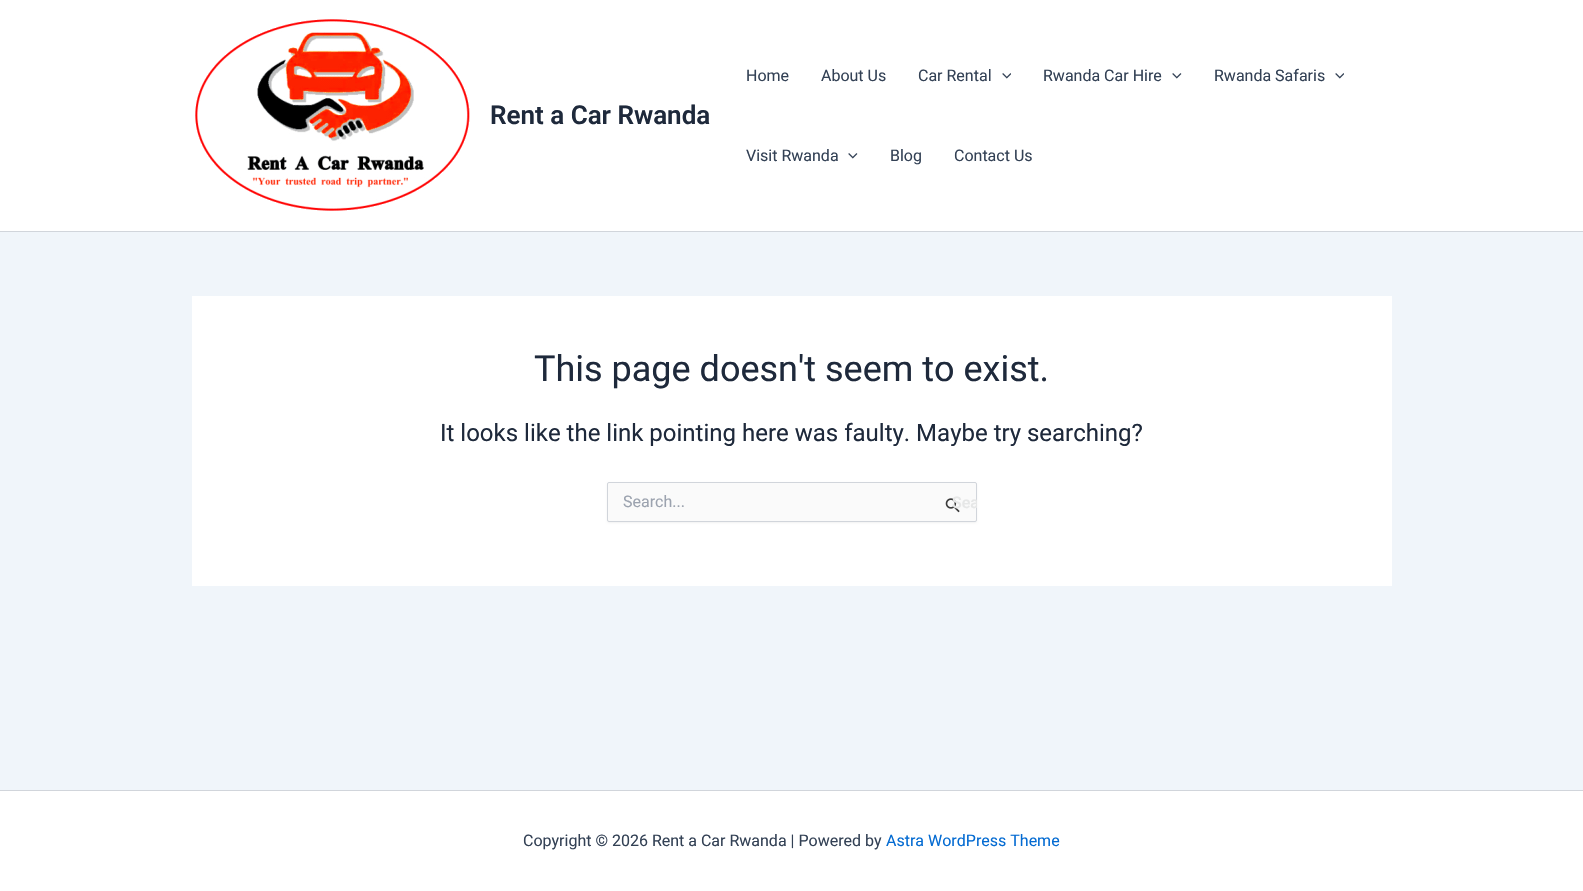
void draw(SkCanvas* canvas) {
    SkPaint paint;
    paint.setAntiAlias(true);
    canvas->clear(0xFFF0F5FA);
    paint.setColor(0xFFFFFFFF);
    canvas->drawRect(SkRect::MakeXYWH(0, 0, 1583, 231), paint);
    paint.setColor(0xFFD1D5DB);
    canvas->drawRect(SkRect::MakeXYWH(0, 231, 1583, 1), paint);
    canvas->drawImageRect(SkImages::DeferredFromEncodedData(SkData::MakeFromFileName("img1.png")), SkRect::MakeXYWH(195, 19, 275, 192), SkSamplingOptions());
    SkFont font1(fontMgr->matchFamilyStyle("Roboto", SkFontStyle(600, SkFontStyle::kNormal_Width, SkFontStyle::kUpright_Slant)), 26);
    font1.setSubpixel(true);
    paint.setColor(0xFF1E293B);
    canvas->drawString("Rent a Car Rwanda", 490, 124, font1, paint);
    SkFont font2(fontMgr->matchFamilyStyle("Roboto", SkFontStyle::Normal()), 16);
    font2.setSubpixel(true);
    paint.setColor(0xFF334155);
    canvas->drawString("Home", 746, 81, font2, paint);
    canvas->drawString("About Us", 821, 81, font2, paint);
    canvas->drawString("Car Rental", 918, 81, font2, paint);
    canvas->drawImageRect(SkImages::DeferredFromEncodedData(SkData::MakeFromFileName("img2.png")), SkRect::MakeXYWH(1002, 73, 9, 6), SkSamplingOptions());
    canvas->drawString("Rwanda Car Hire", 1043, 81, font2, paint);
    canvas->drawImageRect(SkImages::DeferredFromEncodedData(SkData::MakeFromFileName("img3.png")), SkRect::MakeXYWH(1172, 73, 10, 6), SkSamplingOptions());
    canvas->drawString("Rwanda Safaris", 1214, 81, font2, paint);
    canvas->drawImageRect(SkImages::DeferredFromEncodedData(SkData::MakeFromFileName("img2.png")), SkRect::MakeXYWH(1335, 73, 9, 6), SkSamplingOptions());
    canvas->drawString("Visit Rwanda", 746, 161, font2, paint);
    canvas->drawImageRect(SkImages::DeferredFromEncodedData(SkData::MakeFromFileName("img3.png")), SkRect::MakeXYWH(848, 153, 10, 6), SkSamplingOptions());
    canvas->drawString("Blog", 890, 161, font2, paint);
    canvas->drawString("Contact Us", 954, 161, font2, paint);
    paint.setColor(0xFFFFFFFF);
    canvas->drawRect(SkRect::MakeXYWH(192, 296, 1200, 290), paint);
    SkFont font3(fontMgr->matchFamilyStyle("Roboto", SkFontStyle::Normal()), 36);
    font3.setSubpixel(true);
    paint.setColor(0xFF1E293B);
    canvas->drawString("This page doesn't seem to exist.", 534, 381, font3, paint);
    SkFont font4(fontMgr->matchFamilyStyle("Roboto", SkFontStyle::Normal()), 24);
    font4.setSubpixel(true);
    canvas->drawString("It looks like the link pointing here was faulty. Maybe try searching?", 440, 441, font4, paint);
    paint.setColor(0x0D000000);
    paint.setMaskFilter(SkMaskFilter::MakeBlur(kNormal_SkBlurStyle, 1));
    canvas->drawRoundRect(SkRect::MakeXYWH(607, 483, 370, 40), 2, 2, paint);
    paint.setMaskFilter(nullptr);
    paint.setColor(0xFFFAFAFA);
    canvas->drawRoundRect(SkRect::MakeXYWH(607.5f, 482.5f, 369, 39), 1.5f, 1.5f, paint);
    paint.setStyle(SkPaint::kStroke_Style);
    paint.setStrokeWidth(1);
    paint.setColor(0xFFD1D5DB);
    canvas->drawRoundRect(SkRect::MakeXYWH(607.5f, 482.5f, 369, 39), 1.5f, 1.5f, paint);
    paint.setStyle(SkPaint::kFill_Style);
    paint.setColor(0xFF9CA3AF);
    canvas->drawString("Search...", 623, 507, font2, paint);
    canvas->drawImageRect(SkImages::DeferredFromEncodedData(SkData::MakeFromFileName("img4.png")), SkRect::MakeXYWH(945, 498, 15, 15), SkSamplingOptions());
    canvas->save();
    canvas->clipPath(SkPathBuilder().moveTo(934, 482).lineTo(975, 482).cubicTo(976, 482, 977, 483, 977, 484).lineTo(977, 522).cubicTo(977, 523, 976, 524, 975, 524).lineTo(934, 524).cubicTo(933, 524, 932, 523, 932, 522).lineTo(932, 484).cubicTo(932, 483, 933, 482, 934, 482).close().detach(), true);
    SkFont font5(fontMgr->matchFamilyStyle("Roboto", SkFontStyle(500, SkFontStyle::kNormal_Width, SkFontStyle::kUpright_Slant)), 16);
    font5.setSubpixel(true);
    paint.setColor(0xFFE6E7E7);
    canvas->drawString("Sea", 952, 508, font5, paint);
    canvas->restore();
    paint.setColor(0xFFFFFFFF);
    canvas->drawRect(SkRect::MakeXYWH(0, 791, 1583, 100), paint);
    paint.setColor(0xFFD1D5DB);
    canvas->drawRect(SkRect::MakeXYWH(0, 790, 1583, 1), paint);
    paint.setColor(0xFF334155);
    canvas->drawString("Copyright © 2026 Rent a Car Rwanda | Powered by", 523, 846, font2, paint);
    paint.setColor(0xFF046BD2);
    canvas->drawString("Astra WordPress Theme", 886, 846, font2, paint);
}
